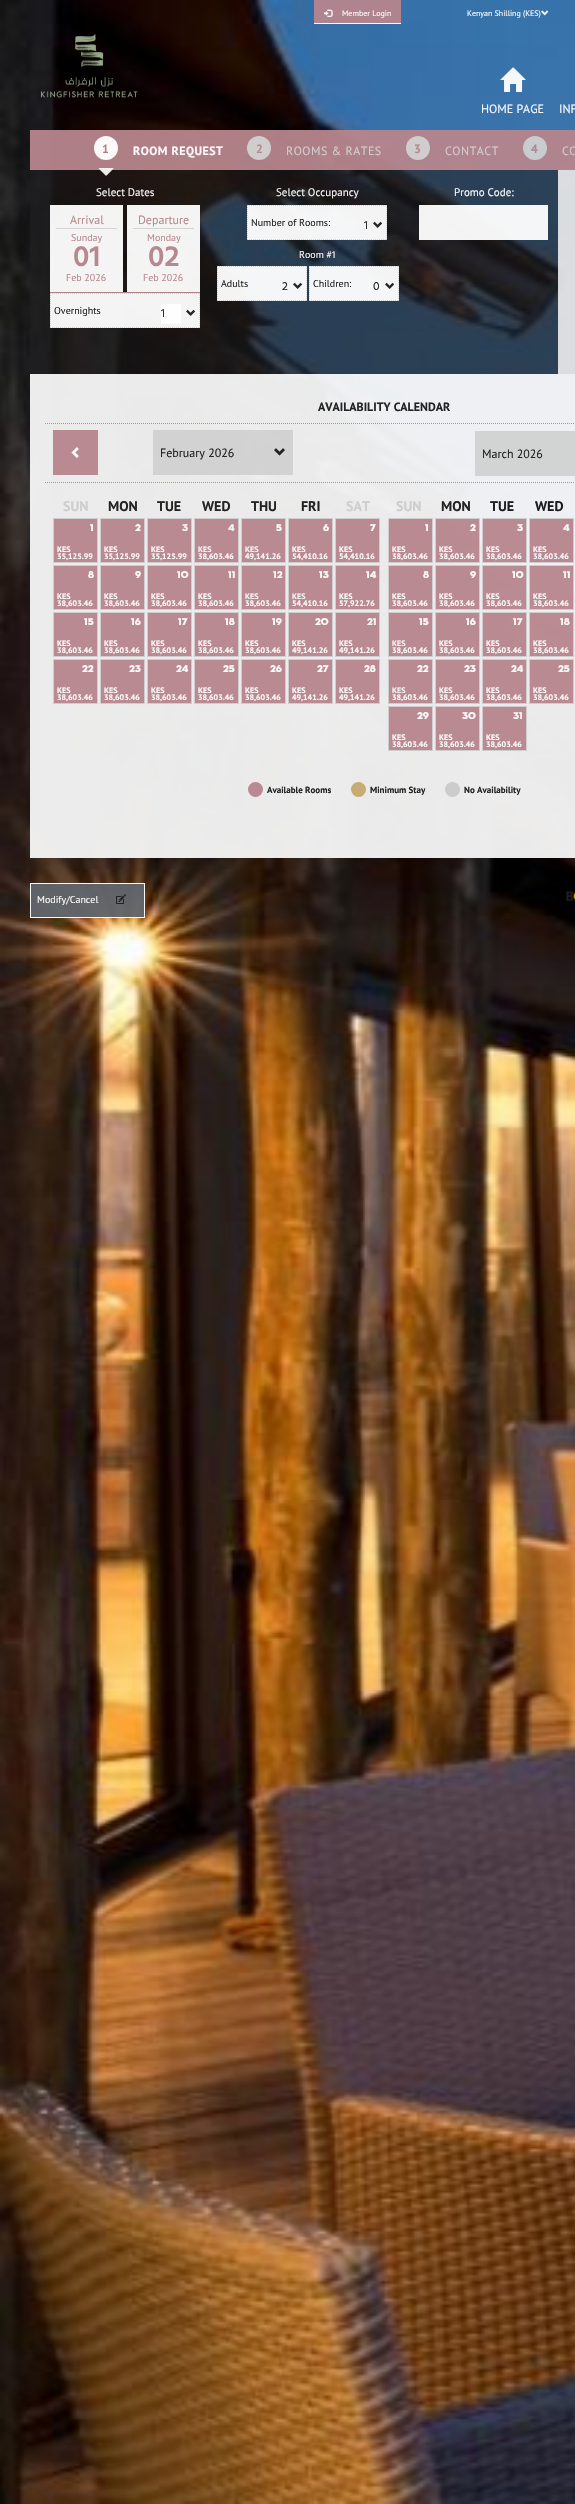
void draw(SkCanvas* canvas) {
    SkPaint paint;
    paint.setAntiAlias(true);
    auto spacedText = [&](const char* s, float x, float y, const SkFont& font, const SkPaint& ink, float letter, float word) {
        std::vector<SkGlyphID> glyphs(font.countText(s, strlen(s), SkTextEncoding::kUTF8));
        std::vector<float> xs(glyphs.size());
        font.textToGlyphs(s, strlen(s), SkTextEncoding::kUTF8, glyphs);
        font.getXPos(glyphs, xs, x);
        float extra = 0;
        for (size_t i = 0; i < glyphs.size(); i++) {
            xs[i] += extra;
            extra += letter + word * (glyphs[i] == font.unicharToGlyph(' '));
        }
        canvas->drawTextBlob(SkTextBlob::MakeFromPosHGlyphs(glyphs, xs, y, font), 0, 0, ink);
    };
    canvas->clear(0xFFFFFFFF);
    canvas->drawImageRect(SkImages::DeferredFromEncodedData(SkData::MakeFromFileName("img1.png")), SkRect::MakeXYWH(0, 0, 575, 2504), SkSamplingOptions());
    paint.setColor(0xF2B6858C);
    canvas->drawRect(SkRect::MakeXYWH(314, 0, 87, 23), paint);
    paint.setColor(0xFFFBF9F9);
    canvas->drawRect(SkRect::MakeXYWH(314, 23, 87, 1), paint);
    canvas->drawImageRect(SkImages::DeferredFromEncodedData(SkData::MakeFromFileName("img2.png")), SkRect::MakeXYWH(324, 9, 9, 8), SkSamplingOptions());
    SkFont font1(fontMgr->matchFamilyStyle("PT Sans", SkFontStyle::Normal()), 8);
    font1.setSubpixel(true);
    canvas->drawString("Member Login", 342, 16, font1, paint);
    paint.setColor(0xFFF5F8FB);
    canvas->drawString("Kenyan Shilling (KES)", 467, 16, font1, paint);
    canvas->drawImageRect(SkImages::DeferredFromEncodedData(SkData::MakeFromFileName("img3.png")), SkRect::MakeXYWH(541, 10, 8, 6), SkSamplingOptions());
    canvas->drawImageRect(SkImages::DeferredFromEncodedData(SkData::MakeFromFileName("img4.png")), SkRect::MakeXYWH(40, 33, 98, 65), SkSamplingOptions());
    canvas->drawImageRect(SkImages::DeferredFromEncodedData(SkData::MakeFromFileName("img5.png")), SkRect::MakeXYWH(500, 67, 26, 25), SkSamplingOptions());
    SkFont font2(fontMgr->matchFamilyStyle("PT Sans", SkFontStyle::Normal()), 12);
    font2.setSubpixel(true);
    canvas->drawString("HOME PAGE", 481, 113, font2, paint);
    canvas->drawString("INF", 559, 113, font2, paint);
    paint.setColor(0xF2B6858C);
    canvas->drawRect(SkRect::MakeXYWH(30, 130, 545, 40), paint);
    paint.setColor(0xFFFBF9F9);
    canvas->drawCircle(106, 148, 12, paint);
    SkFont font3(fontMgr->matchFamilyStyle("PT Sans", SkFontStyle::Bold()), 12);
    font3.setSubpixel(true);
    paint.setColor(0xFFAE7F85);
    canvas->drawString("1", 102, 153, font3, paint);
    paint.setColor(0xFFFBF9F9);
    spacedText("ROOM REQUEST", 133, 155, font3, paint, 0.5f, 0);
    paint.setColor(0x991E1E1E);
    canvas->drawRect(SkRect::MakeXYWH(30, 170, 528, 204), paint);
    canvas->drawImageRect(SkImages::DeferredFromEncodedData(SkData::MakeFromFileName("img6.png")), SkRect::MakeXYWH(98, 168, 16, 8), SkSamplingOptions());
    paint.setColor(0xFFCFCDCD);
    canvas->drawCircle(259, 148, 12, paint);
    paint.setColor(0xFFB7898F);
    canvas->drawString("2", 256, 153, font3, paint);
    paint.setColor(0xFFCFCDCD);
    spacedText("ROOMS & RATES", 286, 155, font2, paint, 0.5f, 0);
    paint.setColor(0xFFCFCDCE);
    canvas->drawCircle(418, 148, 12, paint);
    paint.setColor(0xFFB7898F);
    canvas->drawString("3", 414, 153, font3, paint);
    paint.setColor(0xFFCFCDCD);
    spacedText("CONTACT", 445, 155, font2, paint, 0.5f, 0);
    paint.setColor(0xFFC9CCCF);
    canvas->drawCircle(535, 148, 12, paint);
    paint.setColor(0xFFB0848E);
    canvas->drawString("4", 531, 153, font3, paint);
    paint.setColor(0xFFCFCDCD);
    spacedText("CO", 562, 155, font2, paint, 0.5f, 0);
    SkFont font4(fontMgr->matchFamilyStyle("PT Sans", SkFontStyle::Normal()), 11);
    font4.setSubpixel(true);
    paint.setColor(0xFFF4F3F3);
    canvas->drawString("Select Dates", 96, 196, font4, paint);
    paint.setColor(0xF2FFFFFF);
    canvas->drawRect(SkRect::MakeXYWH(50, 205, 73, 87), paint);
    paint.setColor(0xFFB7898F);
    canvas->drawString("Arrival", 70, 224, font2, paint);
    paint.setColor(0xFFD3D3D3);
    canvas->drawRect(SkRect::MakeXYWH(56, 228, 61, 1), paint);
    SkFont font5(fontMgr->matchFamilyStyle("PT Sans", SkFontStyle::Normal()), 10);
    font5.setSubpixel(true);
    paint.setColor(0xFFB7898F);
    canvas->drawString("Sunday", 71, 241, font5, paint);
    SkFont font6(fontMgr->matchFamilyStyle("Hind", SkFontStyle(600, SkFontStyle::kNormal_Width, SkFontStyle::kUpright_Slant)), 30);
    font6.setSubpixel(true);
    canvas->drawString("01", 73, 266, font6, paint);
    canvas->drawString("Feb 2026", 66, 281, font5, paint);
    paint.setColor(0xF2FFFFFF);
    canvas->drawRect(SkRect::MakeXYWH(127, 205, 73, 87), paint);
    paint.setColor(0xFFB7898F);
    canvas->drawString("Departure", 138, 224, font2, paint);
    paint.setColor(0xFFD3D3D3);
    canvas->drawRect(SkRect::MakeXYWH(133, 228, 61, 1), paint);
    paint.setColor(0xFFB7898F);
    canvas->drawString("Monday", 147, 241, font5, paint);
    canvas->drawString("02", 148, 266, font6, paint);
    canvas->drawString("Feb 2026", 143, 281, font5, paint);
    paint.setColor(0xF2B6858C);
    canvas->drawRect(SkRect::MakeXYWH(50, 292, 150, 1), paint);
    paint.setColor(0xF2FFFFFF);
    canvas->drawRect(SkRect::MakeXYWH(50, 293, 150, 35), paint);
    paint.setStyle(SkPaint::kStroke_Style);
    paint.setStrokeWidth(1);
    paint.setColor(0xFFD3D3D3);
    paint.setPathEffect(SkDashPathEffect::Make({{1, 1}}, 0));
    canvas->drawPath(SkPathBuilder().moveTo(50, 293.5f).lineTo(200, 293.5f).detach(), paint);
    paint.setPathEffect(nullptr);
    paint.setPathEffect(SkDashPathEffect::Make({{1, 1}}, 0));
    canvas->drawPath(SkPathBuilder().moveTo(199.5f, 293).lineTo(199.5f, 328).detach(), paint);
    paint.setPathEffect(nullptr);
    paint.setPathEffect(SkDashPathEffect::Make({{1, 1}}, 0));
    canvas->drawPath(SkPathBuilder().moveTo(50, 327.5f).lineTo(200, 327.5f).detach(), paint);
    paint.setPathEffect(nullptr);
    paint.setColor(0xF2D1D1D1);
    paint.setPathEffect(SkDashPathEffect::Make({{1, 1}}, 0));
    canvas->drawPath(SkPathBuilder().moveTo(50.5f, 293).lineTo(50.5f, 328).detach(), paint);
    paint.setPathEffect(nullptr);
    paint.setStyle(SkPaint::kFill_Style);
    paint.setColor(0xFF242323);
    canvas->drawString("Overnights", 54, 314, font5, paint);
    paint.setColor(0xFFFEFEFE);
    canvas->drawRect(SkRect::MakeXYWH(161, 304, 20, 20), paint);
    SkFont font7(fontMgr->matchFamilyStyle("Hind", SkFontStyle::Normal()), 12);
    font7.setSubpixel(true);
    paint.setColor(0xFF242323);
    canvas->drawString("1", 161, 317, font7, paint);
    canvas->drawImageRect(SkImages::DeferredFromEncodedData(SkData::MakeFromFileName("img7.png")), SkRect::MakeXYWH(186, 309, 10, 7), SkSamplingOptions());
    paint.setColor(0xFFF4F3F3);
    canvas->drawString("Select Occupancy", 276, 196, font4, paint);
    paint.setColor(0xF2FFFFFF);
    canvas->drawRect(SkRect::MakeXYWH(247, 205, 140, 35), paint);
    paint.setStyle(SkPaint::kStroke_Style);
    paint.setColor(0xFFD3D3D3);
    paint.setPathEffect(SkDashPathEffect::Make({{1, 1}}, 0));
    canvas->drawPath(SkPathBuilder().moveTo(247, 205.5f).lineTo(387, 205.5f).detach(), paint);
    paint.setPathEffect(nullptr);
    paint.setPathEffect(SkDashPathEffect::Make({{1, 1}}, 0));
    canvas->drawPath(SkPathBuilder().moveTo(386.5f, 205).lineTo(386.5f, 240).detach(), paint);
    paint.setPathEffect(nullptr);
    paint.setColor(0xF2D1D1D1);
    paint.setPathEffect(SkDashPathEffect::Make({{1, 1}}, 0));
    canvas->drawPath(SkPathBuilder().moveTo(247, 239.5f).lineTo(387, 239.5f).detach(), paint);
    paint.setPathEffect(nullptr);
    paint.setPathEffect(SkDashPathEffect::Make({{1, 1}}, 0));
    canvas->drawPath(SkPathBuilder().moveTo(247.5f, 205).lineTo(247.5f, 240).detach(), paint);
    paint.setPathEffect(nullptr);
    paint.setStyle(SkPaint::kFill_Style);
    paint.setColor(0xFF242323);
    canvas->drawString("Number of Rooms:", 251, 226, font5, paint);
    canvas->drawString("1", 364, 229, font7, paint);
    canvas->drawImageRect(SkImages::DeferredFromEncodedData(SkData::MakeFromFileName("img8.png")), SkRect::MakeXYWH(373, 221, 10, 7), SkSamplingOptions());
    paint.setColor(0xFFF4F3F3);
    canvas->drawString("Room #", 299, 258, font5, paint);
    SkFont font8(fontMgr->matchFamilyStyle("Hind", SkFontStyle::Normal()), 10);
    font8.setSubpixel(true);
    paint.setColor(0xFFF5F8FB);
    canvas->drawString("1", 332, 258, font8, paint);
    paint.setColor(0xF2FFFFFF);
    canvas->drawRect(SkRect::MakeXYWH(217, 266, 90, 35), paint);
    paint.setStyle(SkPaint::kStroke_Style);
    paint.setColor(0xF2D1D1D1);
    paint.setPathEffect(SkDashPathEffect::Make({{1, 1}}, 0));
    canvas->drawPath(SkPathBuilder().moveTo(217, 266.5f).lineTo(307, 266.5f).detach(), paint);
    paint.setPathEffect(nullptr);
    paint.setColor(0xFFD3D3D3);
    paint.setPathEffect(SkDashPathEffect::Make({{1, 1}}, 0));
    canvas->drawPath(SkPathBuilder().moveTo(306.5f, 266).lineTo(306.5f, 301).detach(), paint);
    paint.setPathEffect(nullptr);
    paint.setColor(0xF2D1D1D1);
    paint.setPathEffect(SkDashPathEffect::Make({{1, 1}}, 0));
    canvas->drawPath(SkPathBuilder().moveTo(217, 300.5f).lineTo(307, 300.5f).detach(), paint);
    paint.setPathEffect(nullptr);
    paint.setPathEffect(SkDashPathEffect::Make({{1, 1}}, 0));
    canvas->drawPath(SkPathBuilder().moveTo(217.5f, 266).lineTo(217.5f, 301).detach(), paint);
    paint.setPathEffect(nullptr);
    paint.setStyle(SkPaint::kFill_Style);
    paint.setColor(0xFF242323);
    canvas->drawString("Adults", 221, 287, font5, paint);
    canvas->drawString("2", 282, 290, font7, paint);
    canvas->drawImageRect(SkImages::DeferredFromEncodedData(SkData::MakeFromFileName("img9.png")), SkRect::MakeXYWH(293, 282, 10, 7), SkSamplingOptions());
    paint.setColor(0xF2FFFFFF);
    canvas->drawRect(SkRect::MakeXYWH(309, 266, 90, 35), paint);
    paint.setStyle(SkPaint::kStroke_Style);
    paint.setColor(0xF2D1D1D1);
    paint.setPathEffect(SkDashPathEffect::Make({{1, 1}}, 0));
    canvas->drawPath(SkPathBuilder().moveTo(309, 266.5f).lineTo(399, 266.5f).detach(), paint);
    paint.setPathEffect(nullptr);
    paint.setPathEffect(SkDashPathEffect::Make({{1, 1}}, 0));
    canvas->drawPath(SkPathBuilder().moveTo(398.5f, 266).lineTo(398.5f, 301).detach(), paint);
    paint.setPathEffect(nullptr);
    paint.setColor(0xFFD3D3D3);
    paint.setPathEffect(SkDashPathEffect::Make({{1, 1}}, 0));
    canvas->drawPath(SkPathBuilder().moveTo(309, 300.5f).lineTo(399, 300.5f).detach(), paint);
    paint.setPathEffect(nullptr);
    paint.setColor(0xF2D1D1D1);
    paint.setPathEffect(SkDashPathEffect::Make({{1, 1}}, 0));
    canvas->drawPath(SkPathBuilder().moveTo(309.5f, 266).lineTo(309.5f, 301).detach(), paint);
    paint.setPathEffect(nullptr);
    paint.setStyle(SkPaint::kFill_Style);
    paint.setColor(0xFF242323);
    canvas->drawString("Children:", 313, 287, font5, paint);
    canvas->drawString("0", 373, 290, font7, paint);
    canvas->drawImageRect(SkImages::DeferredFromEncodedData(SkData::MakeFromFileName("img10.png")), SkRect::MakeXYWH(385, 282, 10, 7), SkSamplingOptions());
    paint.setColor(0xFFF5F8FB);
    canvas->drawString("Promo Code:", 454, 196, font4, paint);
    paint.setColor(0xF2FFFFFF);
    canvas->drawRect(SkRect::MakeXYWH(419, 205, 129, 35), paint);
    paint.setColor(0xF2E3E3E3);
    canvas->drawRect(SkRect::MakeXYWH(558, 170, 17, 204), paint);
    paint.setColor(0xF2F7F7F7);
    canvas->drawRect(SkRect::MakeXYWH(30, 374, 545, 484), paint);
    paint.setColor(0xFF242323);
    canvas->drawString("AVAILABILITY CALENDAR", 318, 411, font3, paint);
    paint.setStyle(SkPaint::kStroke_Style);
    paint.setColor(0xF2B6858C);
    paint.setPathEffect(SkDashPathEffect::Make({{1, 1}}, 0));
    canvas->drawPath(SkPathBuilder().moveTo(45, 423.5f).lineTo(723, 423.5f).detach(), paint);
    paint.setPathEffect(nullptr);
    paint.setPathEffect(SkDashPathEffect::Make({{1, 1}}, 0));
    canvas->drawPath(SkPathBuilder().moveTo(45, 482.5f).lineTo(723, 482.5f).detach(), paint);
    paint.setPathEffect(nullptr);
    paint.setStyle(SkPaint::kFill_Style);
    paint.setColor(0xFFB98A91);
    canvas->drawRect(SkRect::MakeXYWH(53, 430, 45, 45), paint);
    canvas->drawImageRect(SkImages::DeferredFromEncodedData(SkData::MakeFromFileName("img11.png")), SkRect::MakeXYWH(71, 447, 8, 11), SkSamplingOptions());
    paint.setColor(0xF2D1D1D1);
    canvas->drawRect(SkRect::MakeXYWH(153, 430, 140, 45), paint);
    paint.setColor(0xFF242323);
    canvas->drawString("February 2026", 160, 457, font2, paint);
    canvas->drawImageRect(SkImages::DeferredFromEncodedData(SkData::MakeFromFileName("img12.png")), SkRect::MakeXYWH(274, 448, 11, 8), SkSamplingOptions());
    paint.setColor(0xFFD2D3D3);
    canvas->drawRect(SkRect::MakeXYWH(475, 431, 100, 45), paint);
    paint.setColor(0xFF242323);
    canvas->drawString("March 2026", 482, 458, font2, paint);
    SkFont font9(fontMgr->matchFamilyStyle("PT Sans", SkFontStyle::Bold()), 14);
    font9.setSubpixel(true);
    paint.setColor(0xFFCFCDCD);
    canvas->drawString("SUN", 63, 511, font9, paint);
    paint.setColor(0xFF242323);
    canvas->drawString("MON", 108, 511, font9, paint);
    canvas->drawString("TUE", 157, 511, font9, paint);
    canvas->drawString("WED", 202, 511, font9, paint);
    canvas->drawString("THU", 251, 511, font9, paint);
    canvas->drawString("FRI", 301, 511, font9, paint);
    paint.setColor(0xFFCFCDCD);
    canvas->drawString("SAT", 346, 511, font9, paint);
    paint.setColor(0xFFB98A91);
    canvas->drawRect(SkRect::MakeXYWH(53.5f, 518.5f, 44, 44), paint);
    paint.setStyle(SkPaint::kStroke_Style);
    paint.setColor(0xFFD0CDCE);
    canvas->drawRect(SkRect::MakeXYWH(53.5f, 518.5f, 44, 44), paint);
    SkFont font10(fontMgr->matchFamilyStyle("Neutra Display", SkFontStyle::Normal()), 10);
    font10.setSubpixel(true);
    paint.setStyle(SkPaint::kFill_Style);
    paint.setColor(0xFFFBF9F9);
    canvas->drawString("1", 90, 531, font10, paint);
    SkFont font11(fontMgr->matchFamilyStyle("PT Sans", SkFontStyle::Bold()), 8);
    font11.setSubpixel(true);
    canvas->drawString("KES", 57, 552, font11, paint);
    canvas->drawString("35,125.99", 57, 559, font11, paint);
    paint.setColor(0xFFB98A91);
    canvas->drawRect(SkRect::MakeXYWH(100.5f, 518.5f, 44, 44), paint);
    paint.setStyle(SkPaint::kStroke_Style);
    paint.setColor(0xFFD0CDCE);
    canvas->drawRect(SkRect::MakeXYWH(100.5f, 518.5f, 44, 44), paint);
    paint.setStyle(SkPaint::kFill_Style);
    paint.setColor(0xFFFBF9F9);
    canvas->drawString("2", 135, 531, font10, paint);
    canvas->drawString("KES", 104, 552, font11, paint);
    canvas->drawString("35,125.99", 104, 559, font11, paint);
    paint.setColor(0xFFB98A91);
    canvas->drawRect(SkRect::MakeXYWH(147.5f, 518.5f, 44, 44), paint);
    paint.setStyle(SkPaint::kStroke_Style);
    paint.setColor(0xFFD0CDCE);
    canvas->drawRect(SkRect::MakeXYWH(147.5f, 518.5f, 44, 44), paint);
    paint.setStyle(SkPaint::kFill_Style);
    paint.setColor(0xFFF4F3F3);
    canvas->drawString("3", 182, 531, font10, paint);
    paint.setColor(0xFFFBF9F9);
    canvas->drawString("KES", 151, 552, font11, paint);
    canvas->drawString("35,125.99", 151, 559, font11, paint);
    paint.setColor(0xFFB98A91);
    canvas->drawRect(SkRect::MakeXYWH(194.5f, 518.5f, 44, 44), paint);
    paint.setStyle(SkPaint::kStroke_Style);
    paint.setColor(0xFFD0CDCE);
    canvas->drawRect(SkRect::MakeXYWH(194.5f, 518.5f, 44, 44), paint);
    paint.setStyle(SkPaint::kFill_Style);
    paint.setColor(0xFFF4F3F3);
    canvas->drawString("4", 228, 531, font10, paint);
    canvas->drawString("KES", 198, 552, font11, paint);
    paint.setColor(0xFFFBF9F9);
    canvas->drawString("38,603.46", 198, 559, font11, paint);
    paint.setColor(0xFFB98A91);
    canvas->drawRect(SkRect::MakeXYWH(241.5f, 518.5f, 44, 44), paint);
    paint.setStyle(SkPaint::kStroke_Style);
    paint.setColor(0xFFD0CDCE);
    canvas->drawRect(SkRect::MakeXYWH(241.5f, 518.5f, 44, 44), paint);
    paint.setStyle(SkPaint::kFill_Style);
    paint.setColor(0xFFFBF9F9);
    canvas->drawString("5", 276, 531, font10, paint);
    paint.setColor(0xFFF4F3F3);
    canvas->drawString("KES", 245, 552, font11, paint);
    paint.setColor(0xFFFBF9F9);
    canvas->drawString("49,141.26", 245, 559, font11, paint);
    paint.setColor(0xFFB98A91);
    canvas->drawRect(SkRect::MakeXYWH(288.5f, 518.5f, 44, 44), paint);
    paint.setStyle(SkPaint::kStroke_Style);
    paint.setColor(0xFFD0CDCE);
    canvas->drawRect(SkRect::MakeXYWH(288.5f, 518.5f, 44, 44), paint);
    paint.setStyle(SkPaint::kFill_Style);
    paint.setColor(0xFFFBF9F9);
    canvas->drawString("6", 323, 531, font10, paint);
    canvas->drawString("KES", 292, 552, font11, paint);
    canvas->drawString("54,410.16", 292, 559, font11, paint);
    paint.setColor(0xFFB98A91);
    canvas->drawRect(SkRect::MakeXYWH(335.5f, 518.5f, 44, 44), paint);
    paint.setStyle(SkPaint::kStroke_Style);
    paint.setColor(0xFFD0CDCE);
    canvas->drawRect(SkRect::MakeXYWH(335.5f, 518.5f, 44, 44), paint);
    paint.setStyle(SkPaint::kFill_Style);
    paint.setColor(0xFFFBF9F9);
    canvas->drawString("7", 370, 531, font10, paint);
    canvas->drawString("KES", 339, 552, font11, paint);
    canvas->drawString("54,410.16", 339, 559, font11, paint);
    paint.setColor(0xFFB98A91);
    canvas->drawRect(SkRect::MakeXYWH(53.5f, 565.5f, 44, 44), paint);
    paint.setStyle(SkPaint::kStroke_Style);
    paint.setColor(0xFFD0CDCE);
    canvas->drawRect(SkRect::MakeXYWH(53.5f, 565.5f, 44, 44), paint);
    paint.setStyle(SkPaint::kFill_Style);
    paint.setColor(0xFFFBF9F9);
    canvas->drawString("8", 88, 578, font10, paint);
    canvas->drawString("KES", 57, 599, font11, paint);
    canvas->drawString("38,603.46", 57, 606, font11, paint);
    paint.setColor(0xFFB98A91);
    canvas->drawRect(SkRect::MakeXYWH(100.5f, 565.5f, 44, 44), paint);
    paint.setStyle(SkPaint::kStroke_Style);
    paint.setColor(0xFFD0CDCE);
    canvas->drawRect(SkRect::MakeXYWH(100.5f, 565.5f, 44, 44), paint);
    paint.setStyle(SkPaint::kFill_Style);
    paint.setColor(0xFFFBF9F9);
    canvas->drawString("9", 135, 578, font10, paint);
    canvas->drawString("KES", 104, 599, font11, paint);
    canvas->drawString("38,603.46", 104, 606, font11, paint);
    paint.setColor(0xFFB98A91);
    canvas->drawRect(SkRect::MakeXYWH(147.5f, 565.5f, 44, 44), paint);
    paint.setStyle(SkPaint::kStroke_Style);
    paint.setColor(0xFFD0CDCE);
    canvas->drawRect(SkRect::MakeXYWH(147.5f, 565.5f, 44, 44), paint);
    paint.setStyle(SkPaint::kFill_Style);
    paint.setColor(0xFFFBF9F9);
    canvas->drawString("10", 177, 578, font10, paint);
    canvas->drawString("KES", 151, 599, font11, paint);
    canvas->drawString("38,603.46", 151, 606, font11, paint);
    paint.setColor(0xFFB98A91);
    canvas->drawRect(SkRect::MakeXYWH(194.5f, 565.5f, 44, 44), paint);
    paint.setStyle(SkPaint::kStroke_Style);
    paint.setColor(0xFFD0CDCE);
    canvas->drawRect(SkRect::MakeXYWH(194.5f, 565.5f, 44, 44), paint);
    paint.setStyle(SkPaint::kFill_Style);
    paint.setColor(0xFFF4F3F3);
    canvas->drawString("11", 228, 578, font10, paint);
    paint.setColor(0xFFFBF9F9);
    canvas->drawString("KES", 198, 599, font11, paint);
    canvas->drawString("38,603.46", 198, 606, font11, paint);
    paint.setColor(0xFFB98A91);
    canvas->drawRect(SkRect::MakeXYWH(241.5f, 565.5f, 44, 44), paint);
    paint.setStyle(SkPaint::kStroke_Style);
    paint.setColor(0xFFD0CDCE);
    canvas->drawRect(SkRect::MakeXYWH(241.5f, 565.5f, 44, 44), paint);
    paint.setStyle(SkPaint::kFill_Style);
    paint.setColor(0xFFF4F3F3);
    canvas->drawString("12", 273, 578, font10, paint);
    canvas->drawString("KES", 245, 599, font11, paint);
    paint.setColor(0xFFFBF9F9);
    canvas->drawString("38,603.46", 245, 606, font11, paint);
    paint.setColor(0xFFB98A91);
    canvas->drawRect(SkRect::MakeXYWH(288.5f, 565.5f, 44, 44), paint);
    paint.setStyle(SkPaint::kStroke_Style);
    paint.setColor(0xFFD0CDCE);
    canvas->drawRect(SkRect::MakeXYWH(288.5f, 565.5f, 44, 44), paint);
    paint.setStyle(SkPaint::kFill_Style);
    paint.setColor(0xFFFBF9F9);
    canvas->drawString("13", 319, 578, font10, paint);
    paint.setColor(0xFFF4F3F3);
    canvas->drawString("KES", 292, 599, font11, paint);
    paint.setColor(0xFFFBF9F9);
    canvas->drawString("54,410.16", 292, 606, font11, paint);
    paint.setColor(0xFFB98A91);
    canvas->drawRect(SkRect::MakeXYWH(335.5f, 565.5f, 44, 44), paint);
    paint.setStyle(SkPaint::kStroke_Style);
    paint.setColor(0xFFD0CDCE);
    canvas->drawRect(SkRect::MakeXYWH(335.5f, 565.5f, 44, 44), paint);
    paint.setStyle(SkPaint::kFill_Style);
    paint.setColor(0xFFFBF9F9);
    canvas->drawString("14", 366, 578, font10, paint);
    canvas->drawString("KES", 339, 599, font11, paint);
    canvas->drawString("57,922.76", 339, 606, font11, paint);
    paint.setColor(0xFFB98A91);
    canvas->drawRect(SkRect::MakeXYWH(53.5f, 612.5f, 44, 44), paint);
    paint.setStyle(SkPaint::kStroke_Style);
    paint.setColor(0xFFD0CDCE);
    canvas->drawRect(SkRect::MakeXYWH(53.5f, 612.5f, 44, 44), paint);
    paint.setStyle(SkPaint::kFill_Style);
    paint.setColor(0xFFFBF9F9);
    canvas->drawString("15", 84, 625, font10, paint);
    canvas->drawString("KES", 57, 646, font11, paint);
    canvas->drawString("38,603.46", 57, 653, font11, paint);
    paint.setColor(0xFFB98A91);
    canvas->drawRect(SkRect::MakeXYWH(100.5f, 612.5f, 44, 44), paint);
    paint.setStyle(SkPaint::kStroke_Style);
    paint.setColor(0xFFD0CDCE);
    canvas->drawRect(SkRect::MakeXYWH(100.5f, 612.5f, 44, 44), paint);
    paint.setStyle(SkPaint::kFill_Style);
    paint.setColor(0xFFFBF9F9);
    canvas->drawString("16", 131, 625, font10, paint);
    canvas->drawString("KES", 104, 646, font11, paint);
    canvas->drawString("38,603.46", 104, 653, font11, paint);
    paint.setColor(0xFFB98A91);
    canvas->drawRect(SkRect::MakeXYWH(147.5f, 612.5f, 44, 44), paint);
    paint.setStyle(SkPaint::kStroke_Style);
    paint.setColor(0xFFD0CDCE);
    canvas->drawRect(SkRect::MakeXYWH(147.5f, 612.5f, 44, 44), paint);
    paint.setStyle(SkPaint::kFill_Style);
    paint.setColor(0xFFFBF9F9);
    canvas->drawString("17", 178, 625, font10, paint);
    canvas->drawString("KES", 151, 646, font11, paint);
    canvas->drawString("38,603.46", 151, 653, font11, paint);
    paint.setColor(0xFFB98A91);
    canvas->drawRect(SkRect::MakeXYWH(194.5f, 612.5f, 44, 44), paint);
    paint.setStyle(SkPaint::kStroke_Style);
    paint.setColor(0xFFD0CDCE);
    canvas->drawRect(SkRect::MakeXYWH(194.5f, 612.5f, 44, 44), paint);
    paint.setStyle(SkPaint::kFill_Style);
    paint.setColor(0xFFFBF9F9);
    canvas->drawString("18", 225, 625, font10, paint);
    canvas->drawString("KES", 198, 646, font11, paint);
    canvas->drawString("38,603.46", 198, 653, font11, paint);
    paint.setColor(0xFFB98A91);
    canvas->drawRect(SkRect::MakeXYWH(241.5f, 612.5f, 44, 44), paint);
    paint.setStyle(SkPaint::kStroke_Style);
    paint.setColor(0xFFD0CDCE);
    canvas->drawRect(SkRect::MakeXYWH(241.5f, 612.5f, 44, 44), paint);
    paint.setStyle(SkPaint::kFill_Style);
    paint.setColor(0xFFFBF9F9);
    canvas->drawString("19", 272, 625, font10, paint);
    canvas->drawString("KES", 245, 646, font11, paint);
    canvas->drawString("38,603.46", 245, 653, font11, paint);
    paint.setColor(0xFFB98A91);
    canvas->drawRect(SkRect::MakeXYWH(288.5f, 612.5f, 44, 44), paint);
    paint.setStyle(SkPaint::kStroke_Style);
    paint.setColor(0xFFD0CDCE);
    canvas->drawRect(SkRect::MakeXYWH(288.5f, 612.5f, 44, 44), paint);
    paint.setStyle(SkPaint::kFill_Style);
    paint.setColor(0xFFFBF9F9);
    canvas->drawString("20", 315, 625, font10, paint);
    canvas->drawString("KES", 292, 646, font11, paint);
    canvas->drawString("49,141.26", 292, 653, font11, paint);
    paint.setColor(0xFFB98A91);
    canvas->drawRect(SkRect::MakeXYWH(335.5f, 612.5f, 44, 44), paint);
    paint.setStyle(SkPaint::kStroke_Style);
    paint.setColor(0xFFD0CDCE);
    canvas->drawRect(SkRect::MakeXYWH(335.5f, 612.5f, 44, 44), paint);
    paint.setStyle(SkPaint::kFill_Style);
    paint.setColor(0xFFF4F3F3);
    canvas->drawString("21", 367, 625, font10, paint);
    paint.setColor(0xFFFBF9F9);
    canvas->drawString("KES", 339, 646, font11, paint);
    canvas->drawString("49,141.26", 339, 653, font11, paint);
    paint.setColor(0xFFB98A91);
    canvas->drawRect(SkRect::MakeXYWH(53.5f, 659.5f, 44, 44), paint);
    paint.setStyle(SkPaint::kStroke_Style);
    paint.setColor(0xFFD0CDCE);
    canvas->drawRect(SkRect::MakeXYWH(53.5f, 659.5f, 44, 44), paint);
    paint.setStyle(SkPaint::kFill_Style);
    paint.setColor(0xFFFBF9F9);
    canvas->drawString("22", 82, 672, font10, paint);
    canvas->drawString("KES", 57, 693, font11, paint);
    canvas->drawString("38,603.46", 57, 700, font11, paint);
    paint.setColor(0xFFB98A91);
    canvas->drawRect(SkRect::MakeXYWH(100.5f, 659.5f, 44, 44), paint);
    paint.setStyle(SkPaint::kStroke_Style);
    paint.setColor(0xFFD0CDCE);
    canvas->drawRect(SkRect::MakeXYWH(100.5f, 659.5f, 44, 44), paint);
    paint.setStyle(SkPaint::kFill_Style);
    paint.setColor(0xFFFBF9F9);
    canvas->drawString("23", 129, 672, font10, paint);
    canvas->drawString("KES", 104, 693, font11, paint);
    canvas->drawString("38,603.46", 104, 700, font11, paint);
    paint.setColor(0xFFB98A91);
    canvas->drawRect(SkRect::MakeXYWH(147.5f, 659.5f, 44, 44), paint);
    paint.setStyle(SkPaint::kStroke_Style);
    paint.setColor(0xFFD0CDCE);
    canvas->drawRect(SkRect::MakeXYWH(147.5f, 659.5f, 44, 44), paint);
    paint.setStyle(SkPaint::kFill_Style);
    paint.setColor(0xFFFBF9F9);
    canvas->drawString("24", 176, 672, font10, paint);
    canvas->drawString("KES", 151, 693, font11, paint);
    canvas->drawString("38,603.46", 151, 700, font11, paint);
    paint.setColor(0xFFB98A91);
    canvas->drawRect(SkRect::MakeXYWH(194.5f, 659.5f, 44, 44), paint);
    paint.setStyle(SkPaint::kStroke_Style);
    paint.setColor(0xFFD0CDCE);
    canvas->drawRect(SkRect::MakeXYWH(194.5f, 659.5f, 44, 44), paint);
    paint.setStyle(SkPaint::kFill_Style);
    paint.setColor(0xFFFBF9F9);
    canvas->drawString("25", 223, 672, font10, paint);
    canvas->drawString("KES", 198, 693, font11, paint);
    canvas->drawString("38,603.46", 198, 700, font11, paint);
    paint.setColor(0xFFB98A91);
    canvas->drawRect(SkRect::MakeXYWH(241.5f, 659.5f, 44, 44), paint);
    paint.setStyle(SkPaint::kStroke_Style);
    paint.setColor(0xFFD0CDCE);
    canvas->drawRect(SkRect::MakeXYWH(241.5f, 659.5f, 44, 44), paint);
    paint.setStyle(SkPaint::kFill_Style);
    paint.setColor(0xFFFBF9F9);
    canvas->drawString("26", 270, 672, font10, paint);
    canvas->drawString("KES", 245, 693, font11, paint);
    canvas->drawString("38,603.46", 245, 700, font11, paint);
    paint.setColor(0xFFB98A91);
    canvas->drawRect(SkRect::MakeXYWH(288.5f, 659.5f, 44, 44), paint);
    paint.setStyle(SkPaint::kStroke_Style);
    paint.setColor(0xFFD0CDCE);
    canvas->drawRect(SkRect::MakeXYWH(288.5f, 659.5f, 44, 44), paint);
    paint.setStyle(SkPaint::kFill_Style);
    paint.setColor(0xFFFBF9F9);
    canvas->drawString("27", 317, 672, font10, paint);
    canvas->drawString("KES", 292, 693, font11, paint);
    canvas->drawString("49,141.26", 292, 700, font11, paint);
    paint.setColor(0xFFB98A91);
    canvas->drawRect(SkRect::MakeXYWH(335.5f, 659.5f, 44, 44), paint);
    paint.setStyle(SkPaint::kStroke_Style);
    paint.setColor(0xFFD0CDCE);
    canvas->drawRect(SkRect::MakeXYWH(335.5f, 659.5f, 44, 44), paint);
    paint.setStyle(SkPaint::kFill_Style);
    paint.setColor(0xFFFBF9F9);
    canvas->drawString("28", 364, 672, font10, paint);
    canvas->drawString("KES", 339, 693, font11, paint);
    canvas->drawString("49,141.26", 339, 700, font11, paint);
    paint.setColor(0xFFCFCDCD);
    canvas->drawString("SUN", 396, 511, font9, paint);
    paint.setColor(0xFF242323);
    canvas->drawString("MON", 441, 511, font9, paint);
    paint.setColor(0xFF1B1C1F);
    canvas->drawString("TUE", 490, 511, font9, paint);
    canvas->drawString("WED", 535, 511, font9, paint);
    paint.setColor(0xFFB98A91);
    canvas->drawRect(SkRect::MakeXYWH(388.5f, 518.5f, 44, 44), paint);
    paint.setStyle(SkPaint::kStroke_Style);
    paint.setColor(0xFFD0CDCE);
    canvas->drawRect(SkRect::MakeXYWH(388.5f, 518.5f, 44, 44), paint);
    paint.setStyle(SkPaint::kFill_Style);
    paint.setColor(0xFFFBF9F9);
    canvas->drawString("1", 425, 531, font10, paint);
    canvas->drawString("KES", 392, 552, font11, paint);
    canvas->drawString("38,603.46", 392, 559, font11, paint);
    paint.setColor(0xF2B6858C);
    canvas->drawRect(SkRect::MakeXYWH(435.5f, 518.5f, 44, 44), paint);
    paint.setStyle(SkPaint::kStroke_Style);
    paint.setColor(0xFFD0CDCE);
    canvas->drawRect(SkRect::MakeXYWH(435.5f, 518.5f, 44, 44), paint);
    paint.setStyle(SkPaint::kFill_Style);
    paint.setColor(0xFFFBF9F9);
    canvas->drawString("2", 470, 531, font10, paint);
    canvas->drawString("KES", 439, 552, font11, paint);
    canvas->drawString("38,603.46", 439, 559, font11, paint);
    paint.setColor(0xF2B6858C);
    canvas->drawRect(SkRect::MakeXYWH(482.5f, 518.5f, 44, 44), paint);
    paint.setStyle(SkPaint::kStroke_Style);
    paint.setColor(0xFFD0CDCE);
    canvas->drawRect(SkRect::MakeXYWH(482.5f, 518.5f, 44, 44), paint);
    paint.setStyle(SkPaint::kFill_Style);
    paint.setColor(0xFFFBF9F9);
    canvas->drawString("3", 517, 531, font10, paint);
    canvas->drawString("KES", 486, 552, font11, paint);
    canvas->drawString("38,603.46", 486, 559, font11, paint);
    paint.setColor(0xFFB98A91);
    canvas->drawRect(SkRect::MakeXYWH(529.5f, 518.5f, 44, 44), paint);
    paint.setStyle(SkPaint::kStroke_Style);
    paint.setColor(0xFFD0CDCE);
    canvas->drawRect(SkRect::MakeXYWH(529.5f, 518.5f, 44, 44), paint);
    paint.setStyle(SkPaint::kFill_Style);
    paint.setColor(0xFFF5F8FB);
    canvas->drawString("4", 563, 531, font10, paint);
    canvas->drawString("KES", 533, 552, font11, paint);
    canvas->drawString("38,603.46", 533, 559, font11, paint);
    paint.setColor(0xFFB98A91);
    canvas->drawRect(SkRect::MakeXYWH(388.5f, 565.5f, 44, 44), paint);
    paint.setStyle(SkPaint::kStroke_Style);
    paint.setColor(0xFFD0CDCE);
    canvas->drawRect(SkRect::MakeXYWH(388.5f, 565.5f, 44, 44), paint);
    paint.setStyle(SkPaint::kFill_Style);
    paint.setColor(0xFFFBF9F9);
    canvas->drawString("8", 423, 578, font10, paint);
    canvas->drawString("KES", 392, 599, font11, paint);
    canvas->drawString("38,603.46", 392, 606, font11, paint);
    paint.setColor(0xF2B6858C);
    canvas->drawRect(SkRect::MakeXYWH(435.5f, 565.5f, 44, 44), paint);
    paint.setStyle(SkPaint::kStroke_Style);
    paint.setColor(0xFFD0CDCE);
    canvas->drawRect(SkRect::MakeXYWH(435.5f, 565.5f, 44, 44), paint);
    paint.setStyle(SkPaint::kFill_Style);
    paint.setColor(0xFFFBF9F9);
    canvas->drawString("9", 470, 578, font10, paint);
    canvas->drawString("KES", 439, 599, font11, paint);
    canvas->drawString("38,603.46", 439, 606, font11, paint);
    paint.setColor(0xF2B6858C);
    canvas->drawRect(SkRect::MakeXYWH(482.5f, 565.5f, 44, 44), paint);
    paint.setStyle(SkPaint::kStroke_Style);
    paint.setColor(0xFFD0CDCE);
    canvas->drawRect(SkRect::MakeXYWH(482.5f, 565.5f, 44, 44), paint);
    paint.setStyle(SkPaint::kFill_Style);
    paint.setColor(0xFFFBF9F9);
    canvas->drawString("10", 512, 578, font10, paint);
    canvas->drawString("KES", 486, 599, font11, paint);
    canvas->drawString("38,603.46", 486, 606, font11, paint);
    paint.setColor(0xF2B6858C);
    canvas->drawRect(SkRect::MakeXYWH(529.5f, 565.5f, 44, 44), paint);
    paint.setStyle(SkPaint::kStroke_Style);
    paint.setColor(0xFFD0CDCE);
    canvas->drawRect(SkRect::MakeXYWH(529.5f, 565.5f, 44, 44), paint);
    paint.setStyle(SkPaint::kFill_Style);
    paint.setColor(0xFFFBF9F9);
    canvas->drawString("11", 563, 578, font10, paint);
    canvas->drawString("KES", 533, 599, font11, paint);
    canvas->drawString("38,603.46", 533, 606, font11, paint);
    paint.setColor(0xFFB98A91);
    canvas->drawRect(SkRect::MakeXYWH(388.5f, 612.5f, 44, 44), paint);
    paint.setStyle(SkPaint::kStroke_Style);
    paint.setColor(0xFFD0CDCE);
    canvas->drawRect(SkRect::MakeXYWH(388.5f, 612.5f, 44, 44), paint);
    paint.setStyle(SkPaint::kFill_Style);
    paint.setColor(0xFFFBF9F9);
    canvas->drawString("15", 419, 625, font10, paint);
    paint.setColor(0xFFF4F3F3);
    canvas->drawString("KES", 392, 646, font11, paint);
    paint.setColor(0xFFFBF9F9);
    canvas->drawString("38,603.46", 392, 653, font11, paint);
    paint.setColor(0xFFB98A91);
    canvas->drawRect(SkRect::MakeXYWH(435.5f, 612.5f, 44, 44), paint);
    paint.setStyle(SkPaint::kStroke_Style);
    paint.setColor(0xFFD0CDCE);
    canvas->drawRect(SkRect::MakeXYWH(435.5f, 612.5f, 44, 44), paint);
    paint.setStyle(SkPaint::kFill_Style);
    paint.setColor(0xFFFBF9F9);
    canvas->drawString("16", 466, 625, font10, paint);
    canvas->drawString("KES", 439, 646, font11, paint);
    canvas->drawString("38,603.46", 439, 653, font11, paint);
    paint.setColor(0xF2B6858C);
    canvas->drawRect(SkRect::MakeXYWH(482.5f, 612.5f, 44, 44), paint);
    paint.setStyle(SkPaint::kStroke_Style);
    paint.setColor(0xFFD0CDCE);
    canvas->drawRect(SkRect::MakeXYWH(482.5f, 612.5f, 44, 44), paint);
    paint.setStyle(SkPaint::kFill_Style);
    paint.setColor(0xFFFBF9F9);
    canvas->drawString("17", 513, 625, font10, paint);
    canvas->drawString("KES", 486, 646, font11, paint);
    canvas->drawString("38,603.46", 486, 653, font11, paint);
    paint.setColor(0xF2B6858C);
    canvas->drawRect(SkRect::MakeXYWH(529.5f, 612.5f, 44, 44), paint);
    paint.setStyle(SkPaint::kStroke_Style);
    paint.setColor(0xFFD0CDCE);
    canvas->drawRect(SkRect::MakeXYWH(529.5f, 612.5f, 44, 44), paint);
    paint.setStyle(SkPaint::kFill_Style);
    paint.setColor(0xFFFBF9F9);
    canvas->drawString("18", 560, 625, font10, paint);
    canvas->drawString("KES", 533, 646, font11, paint);
    canvas->drawString("38,603.46", 533, 653, font11, paint);
    paint.setColor(0xFFB98A91);
    canvas->drawRect(SkRect::MakeXYWH(388.5f, 659.5f, 44, 44), paint);
    paint.setStyle(SkPaint::kStroke_Style);
    paint.setColor(0xFFD0CDCE);
    canvas->drawRect(SkRect::MakeXYWH(388.5f, 659.5f, 44, 44), paint);
    paint.setStyle(SkPaint::kFill_Style);
    paint.setColor(0xFFFBF9F9);
    canvas->drawString("22", 417, 672, font10, paint);
    paint.setColor(0xFFF4F3F3);
    canvas->drawString("KES", 392, 693, font11, paint);
    paint.setColor(0xFFFBF9F9);
    canvas->drawString("38,603.46", 392, 700, font11, paint);
    paint.setColor(0xFFB98A91);
    canvas->drawRect(SkRect::MakeXYWH(435.5f, 659.5f, 44, 44), paint);
    paint.setStyle(SkPaint::kStroke_Style);
    paint.setColor(0xFFD0CDCE);
    canvas->drawRect(SkRect::MakeXYWH(435.5f, 659.5f, 44, 44), paint);
    paint.setStyle(SkPaint::kFill_Style);
    paint.setColor(0xFFFBF9F9);
    canvas->drawString("23", 464, 672, font10, paint);
    canvas->drawString("KES", 439, 693, font11, paint);
    canvas->drawString("38,603.46", 439, 700, font11, paint);
    paint.setColor(0xFFB98A91);
    canvas->drawRect(SkRect::MakeXYWH(482.5f, 659.5f, 44, 44), paint);
    paint.setStyle(SkPaint::kStroke_Style);
    paint.setColor(0xFFD0CDCE);
    canvas->drawRect(SkRect::MakeXYWH(482.5f, 659.5f, 44, 44), paint);
    paint.setStyle(SkPaint::kFill_Style);
    paint.setColor(0xFFFBF9F9);
    canvas->drawString("24", 511, 672, font10, paint);
    canvas->drawString("KES", 486, 693, font11, paint);
    canvas->drawString("38,603.46", 486, 700, font11, paint);
    paint.setColor(0xF2B6858C);
    canvas->drawRect(SkRect::MakeXYWH(529.5f, 659.5f, 44, 44), paint);
    paint.setStyle(SkPaint::kStroke_Style);
    paint.setColor(0xFFD0CDCE);
    canvas->drawRect(SkRect::MakeXYWH(529.5f, 659.5f, 44, 44), paint);
    paint.setStyle(SkPaint::kFill_Style);
    paint.setColor(0xFFFBF9F9);
    canvas->drawString("25", 558, 672, font10, paint);
    canvas->drawString("KES", 533, 693, font11, paint);
    canvas->drawString("38,603.46", 533, 700, font11, paint);
    paint.setColor(0xFFB98A91);
    canvas->drawRect(SkRect::MakeXYWH(388.5f, 706.5f, 44, 44), paint);
    paint.setStyle(SkPaint::kStroke_Style);
    paint.setColor(0xFFD0CDCE);
    canvas->drawRect(SkRect::MakeXYWH(388.5f, 706.5f, 44, 44), paint);
    paint.setStyle(SkPaint::kFill_Style);
    paint.setColor(0xFFFBF9F9);
    canvas->drawString("29", 417, 719, font10, paint);
    canvas->drawString("KES", 392, 740, font11, paint);
    canvas->drawString("38,603.46", 392, 747, font11, paint);
    paint.setColor(0xFFB98A91);
    canvas->drawRect(SkRect::MakeXYWH(435.5f, 706.5f, 44, 44), paint);
    paint.setStyle(SkPaint::kStroke_Style);
    paint.setColor(0xFFD0CDCE);
    canvas->drawRect(SkRect::MakeXYWH(435.5f, 706.5f, 44, 44), paint);
    paint.setStyle(SkPaint::kFill_Style);
    paint.setColor(0xFFFBF9F9);
    canvas->drawString("30", 462, 719, font10, paint);
    canvas->drawString("KES", 439, 740, font11, paint);
    canvas->drawString("38,603.46", 439, 747, font11, paint);
    paint.setColor(0xFFB98A91);
    canvas->drawRect(SkRect::MakeXYWH(482.5f, 706.5f, 44, 44), paint);
    paint.setStyle(SkPaint::kStroke_Style);
    paint.setColor(0xFFD0CDCE);
    canvas->drawRect(SkRect::MakeXYWH(482.5f, 706.5f, 44, 44), paint);
    paint.setStyle(SkPaint::kFill_Style);
    paint.setColor(0xFFF4F3F3);
    canvas->drawString("31", 513, 719, font10, paint);
    paint.setColor(0xFFFBF9F9);
    canvas->drawString("KES", 486, 740, font11, paint);
    canvas->drawString("38,603.46", 486, 747, font11, paint);
    paint.setColor(0xFFB98A91);
    canvas->drawCircle(255.5f, 789.5f, 7.5f, paint);
    SkFont font12(fontMgr->matchFamilyStyle("PT Sans", SkFontStyle::Bold()), 9);
    font12.setSubpixel(true);
    paint.setColor(0xFF242323);
    canvas->drawString("Available Rooms", 267, 793, font12, paint);
    paint.setColor(0xFFC8AB72);
    canvas->drawCircle(358.5f, 789.5f, 7.5f, paint);
    paint.setColor(0xFF242323);
    canvas->drawString("Minimum Stay", 370, 793, font12, paint);
    paint.setColor(0xFFCCCCCC);
    canvas->drawCircle(452.5f, 789.5f, 7.5f, paint);
    paint.setColor(0xFF242323);
    canvas->drawString("No Availability", 464, 793, font12, paint);
    paint.setColor(0xF260656B);
    canvas->drawRect(SkRect::MakeXYWH(30, 883, 115, 35), paint);
    paint.setStyle(SkPaint::kStroke_Style);
    paint.setColor(0xF2FFFFFF);
    canvas->drawRect(SkRect::MakeXYWH(30.5f, 883.5f, 114, 34), paint);
    paint.setStyle(SkPaint::kFill_Style);
    paint.setColor(0xFFFBF9F9);
    canvas->drawString("Modify/Cancel", 37, 903, font5, paint);
    canvas->drawImageRect(SkImages::DeferredFromEncodedData(SkData::MakeFromFileName("img13.png")), SkRect::MakeXYWH(116, 894, 10, 10), SkSamplingOptions());
    canvas->drawImageRect(SkImages::DeferredFromEncodedData(SkData::MakeFromFileName("img14.png")), SkRect::MakeXYWH(566, 891, 9, 11), SkSamplingOptions());
}
